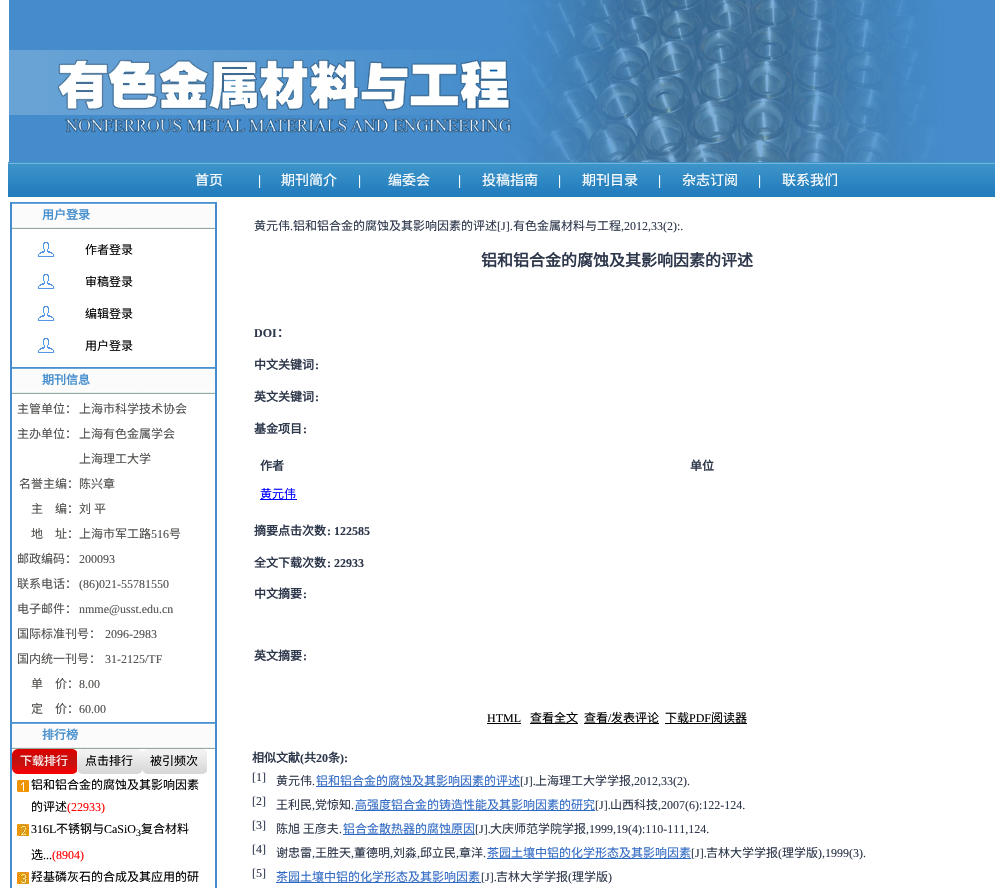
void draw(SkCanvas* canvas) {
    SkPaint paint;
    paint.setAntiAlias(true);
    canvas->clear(0xFFFFFFFF);
    canvas->drawImageRect(SkImages::DeferredFromEncodedData(SkData::MakeFromFileName("img1.png")), SkRect::MakeXYWH(9, 0, 986, 162), SkSamplingOptions());
    canvas->drawImageRect(SkImages::DeferredFromEncodedData(SkData::MakeFromFileName("img2.png")), SkRect::MakeXYWH(8, 162, 987, 35), SkSamplingOptions());
    SkFont font1(fontMgr->matchFamilyStyle("Noto Sans CJK SC", SkFontStyle::Normal()), 14);
    font1.setSubpixel(true);
    paint.setColor(0xFFFFFFFF);
    canvas->drawString("首页", 195, 185, font1, paint);
    SkFont font2(fontMgr->matchFamilyStyle("Liberation Serif", SkFontStyle::Bold()), 14);
    font2.setSubpixel(true);
    canvas->drawString("|", 258, 185, font2, paint);
    canvas->drawString("期刊简介", 281, 185, font1, paint);
    canvas->drawString("|", 358, 185, font2, paint);
    canvas->drawString("编委会", 388, 185, font1, paint);
    canvas->drawString("|", 458, 185, font2, paint);
    canvas->drawString("投稿指南", 482, 185, font1, paint);
    canvas->drawString("|", 558, 185, font2, paint);
    canvas->drawString("期刊目录", 582, 185, font1, paint);
    canvas->drawString("|", 658, 185, font2, paint);
    canvas->drawString("杂志订阅", 682, 185, font1, paint);
    canvas->drawString("|", 758, 185, font2, paint);
    canvas->drawString("联系我们", 782, 185, font1, paint);
    paint.setColor(0xFF448CCB);
    canvas->drawRect(SkRect::MakeXYWH(215, 202, 2, 686), paint);
    canvas->drawRect(SkRect::MakeXYWH(10, 202, 2, 686), paint);
    canvas->drawImageRect(SkImages::DeferredFromEncodedData(SkData::MakeFromFileName("img3.png")), SkRect::MakeXYWH(12, 202, 203, 27), SkSamplingOptions());
    SkFont font3(fontMgr->matchFamilyStyle("Noto Sans CJK SC", SkFontStyle::Bold()), 12);
    font3.setSubpixel(true);
    paint.setColor(0xFF458FCE);
    canvas->drawString("用户登录", 42, 219, font3, paint);
    canvas->drawImageRect(SkImages::DeferredFromEncodedData(SkData::MakeFromFileName("img4.png")), SkRect::MakeXYWH(38, 242, 16, 15), SkSamplingOptions());
    SkFont font4(fontMgr->matchFamilyStyle("Noto Sans CJK SC", SkFontStyle::Normal()), 12);
    font4.setSubpixel(true);
    paint.setColor(0xFF000000);
    canvas->drawString("作者登录", 85, 254, font4, paint);
    canvas->drawImageRect(SkImages::DeferredFromEncodedData(SkData::MakeFromFileName("img4.png")), SkRect::MakeXYWH(38, 274, 16, 15), SkSamplingOptions());
    canvas->drawString("审稿登录", 85, 286, font4, paint);
    canvas->drawImageRect(SkImages::DeferredFromEncodedData(SkData::MakeFromFileName("img4.png")), SkRect::MakeXYWH(38, 306, 16, 15), SkSamplingOptions());
    canvas->drawString("编辑登录", 85, 318, font4, paint);
    canvas->drawImageRect(SkImages::DeferredFromEncodedData(SkData::MakeFromFileName("img4.png")), SkRect::MakeXYWH(38, 338, 16, 15), SkSamplingOptions());
    canvas->drawString("用户登录", 85, 350, font4, paint);
    canvas->drawImageRect(SkImages::DeferredFromEncodedData(SkData::MakeFromFileName("img3.png")), SkRect::MakeXYWH(12, 367, 203, 27), SkSamplingOptions());
    paint.setColor(0xFF458FCE);
    canvas->drawString("期刊信息", 42, 384, font3, paint);
    paint.setColor(0xFF504F4D);
    canvas->drawString("主管单位：", 17, 413, font4, paint);
    canvas->drawString("上海市科学技术协会", 79, 413, font4, paint);
    canvas->drawString("主办单位：", 17, 438, font4, paint);
    canvas->drawString("上海有色金属学会", 79, 438, font4, paint);
    canvas->drawString("上海理工大学", 79, 463, font4, paint);
    canvas->drawString("名誉主编：陈兴章", 19, 488, font4, paint);
    canvas->drawString("主", 31, 513, font4, paint);
    canvas->drawString("编：刘", 55, 513, font4, paint);
    canvas->drawString("平", 94, 513, font4, paint);
    canvas->drawString("地", 31, 538, font4, paint);
    canvas->drawString("址：上海市军工路", 55, 538, font4, paint);
    SkFont font5(fontMgr->matchFamilyStyle("Liberation Serif", SkFontStyle::Normal()), 12);
    font5.setSubpixel(true);
    canvas->drawString("516", 151, 538, font5, paint);
    canvas->drawString("号", 169, 538, font4, paint);
    canvas->drawString("邮政编码：", 17, 563, font4, paint);
    canvas->drawString("200093", 79, 563, font5, paint);
    canvas->drawString("联系电话：", 17, 588, font4, paint);
    canvas->drawString("(86)021-55781550", 79, 588, font5, paint);
    canvas->drawString("电子邮件：", 17, 613, font4, paint);
    canvas->drawString("nmme@usst.edu.cn", 79, 613, font5, paint);
    canvas->drawString("国际标准刊号：", 17, 638, font4, paint);
    canvas->drawString("2096-2983", 105, 638, font5, paint);
    canvas->drawString("国内统一刊号：", 17, 663, font4, paint);
    canvas->drawString("31-2125/TF", 105, 663, font5, paint);
    canvas->drawString("单", 31, 688, font4, paint);
    canvas->drawString("价：", 55, 688, font4, paint);
    canvas->drawString("8.00", 79, 688, font5, paint);
    canvas->drawString("定", 31, 713, font4, paint);
    canvas->drawString("价：", 55, 713, font4, paint);
    canvas->drawString("60.00", 79, 713, font5, paint);
    canvas->drawImageRect(SkImages::DeferredFromEncodedData(SkData::MakeFromFileName("img3.png")), SkRect::MakeXYWH(12, 722, 203, 27), SkSamplingOptions());
    paint.setColor(0xFF458FCE);
    canvas->drawString("排行榜", 42, 739, font3, paint);
    canvas->drawImageRect(SkImages::DeferredFromEncodedData(SkData::MakeFromFileName("img5.png")), SkRect::MakeXYWH(12, 749, 65, 25), SkSamplingOptions());
    paint.setColor(0xFFFFFFFF);
    canvas->drawString("下载排行", 20, 765, font4, paint);
    canvas->drawImageRect(SkImages::DeferredFromEncodedData(SkData::MakeFromFileName("img6.png")), SkRect::MakeXYWH(77, 749, 65, 25), SkSamplingOptions());
    paint.setColor(0xFF000000);
    canvas->drawString("点击排行", 85, 765, font4, paint);
    canvas->drawImageRect(SkImages::DeferredFromEncodedData(SkData::MakeFromFileName("img6.png")), SkRect::MakeXYWH(142, 749, 65, 25), SkSamplingOptions());
    canvas->drawString("被引频次", 150, 765, font4, paint);
    canvas->drawImageRect(SkImages::DeferredFromEncodedData(SkData::MakeFromFileName("img7.png")), SkRect::MakeXYWH(17, 780, 12, 12), SkSamplingOptions());
    canvas->drawString("铝和铝合金的腐蚀及其影响因素", 31, 789, font4, paint);
    canvas->drawString("的评述", 31, 811, font4, paint);
    paint.setColor(0xFFFF0000);
    canvas->drawString("(22933)", 67, 811, font5, paint);
    canvas->drawImageRect(SkImages::DeferredFromEncodedData(SkData::MakeFromFileName("img8.png")), SkRect::MakeXYWH(17, 824, 12, 12), SkSamplingOptions());
    paint.setColor(0xFF000000);
    canvas->drawString("316L", 31, 833, font5, paint);
    canvas->drawString("不锈钢与", 56, 833, font4, paint);
    canvas->drawString("CaSiO", 104, 833, font5, paint);
    SkFont font6(fontMgr->matchFamilyStyle("Liberation Serif", SkFontStyle::Normal()), 10);
    font6.setSubpixel(true);
    canvas->drawString("3", 136, 836, font6, paint);
    canvas->drawString("复合材料", 141, 833, font4, paint);
    canvas->drawString("选", 31, 859, font4, paint);
    canvas->drawString("...", 43, 859, font5, paint);
    paint.setColor(0xFFFF0000);
    canvas->drawString("(8904)", 52, 859, font5, paint);
    canvas->drawImageRect(SkImages::DeferredFromEncodedData(SkData::MakeFromFileName("img9.png")), SkRect::MakeXYWH(17, 872, 12, 12), SkSamplingOptions());
    paint.setColor(0xFF000000);
    canvas->drawString("羟基磷灰石的合成及其应用的研", 31, 881, font4, paint);
    paint.setColor(0xFF2D374B);
    canvas->drawString("黄元伟", 254, 230, font4, paint);
    canvas->drawString(".", 290, 230, font5, paint);
    canvas->drawString("铝和铝合金的腐蚀及其影响因素的评述", 293, 230, font4, paint);
    canvas->drawString("[J].", 497, 230, font5, paint);
    canvas->drawString("有色金属材料与工程", 513, 230, font4, paint);
    canvas->drawString(",2012,33(2):.", 621, 230, font5, paint);
    SkFont font7(fontMgr->matchFamilyStyle("Noto Sans CJK SC", SkFontStyle::Bold()), 16);
    font7.setSubpixel(true);
    canvas->drawString("铝和铝合金的腐蚀及其影响因素的评述", 481, 266, font7, paint);
    SkFont font8(fontMgr->matchFamilyStyle("Liberation Serif", SkFontStyle::Bold()), 12);
    font8.setSubpixel(true);
    canvas->drawString("DOI", 254, 337, font8, paint);
    canvas->drawString("：", 277, 337, font3, paint);
    canvas->drawString("中文关键词", 254, 369, font3, paint);
    canvas->drawString(":", 315, 369, font8, paint);
    canvas->drawString("英文关键词", 254, 401, font3, paint);
    canvas->drawString(":", 315, 401, font8, paint);
    canvas->drawString("基金项目", 254, 433, font3, paint);
    canvas->drawString(":", 303, 433, font8, paint);
    canvas->drawString("作者", 260, 470, font3, paint);
    canvas->drawString("单位", 690, 470, font3, paint);
    paint.setColor(0xFF0000FF);
    canvas->drawString("黄元伟", 260, 498, font4, paint);
    canvas->drawRect(SkRect::MakeXYWH(260, 499, 37, 1), paint);
    paint.setColor(0xFF2D374B);
    canvas->drawString("摘要点击次数", 254, 535, font3, paint);
    canvas->drawString(": 122585", 327, 535, font8, paint);
    canvas->drawString("全文下载次数", 254, 567, font3, paint);
    canvas->drawString(": 22933", 327, 567, font8, paint);
    canvas->drawString("中文摘要", 254, 598, font3, paint);
    canvas->drawString(":", 303, 598, font8, paint);
    canvas->drawString("英文摘要", 254, 660, font3, paint);
    canvas->drawString(":", 303, 660, font8, paint);
    paint.setColor(0xFF000000);
    canvas->drawString("HTML", 487, 722, font5, paint);
    canvas->drawRect(SkRect::MakeXYWH(487, 723, 34, 1), paint);
    canvas->drawString("查看全文", 530, 722, font4, paint);
    canvas->drawRect(SkRect::MakeXYWH(530, 723, 48, 1), paint);
    canvas->drawString("查看", 584, 722, font4, paint);
    canvas->drawString("/", 608, 722, font5, paint);
    canvas->drawRect(SkRect::MakeXYWH(584, 723, 75, 1), paint);
    canvas->drawString("发表评论", 611, 722, font4, paint);
    canvas->drawString("下载", 665, 722, font4, paint);
    canvas->drawString("PDF", 689, 722, font5, paint);
    canvas->drawRect(SkRect::MakeXYWH(665, 723, 82, 1), paint);
    canvas->drawString("阅读器", 711, 722, font4, paint);
    paint.setColor(0xFF2D374B);
    canvas->drawString("相似文献", 252, 762, font3, paint);
    canvas->drawString("(", 300, 762, font8, paint);
    canvas->drawString("共", 304, 762, font3, paint);
    canvas->drawString("20", 316, 762, font8, paint);
    canvas->drawString("条", 328, 762, font3, paint);
    canvas->drawString("):", 340, 762, font8, paint);
    canvas->drawString("[1]", 252, 781, font5, paint);
    canvas->drawString("黄元伟", 276, 785, font4, paint);
    canvas->drawString(".", 312, 785, font5, paint);
    paint.setColor(0xFF316AC5);
    canvas->drawString("铝和铝合金的腐蚀及其影响因素的评述", 316, 785, font4, paint);
    canvas->drawRect(SkRect::MakeXYWH(316, 786, 204, 1), paint);
    paint.setColor(0xFF2D374B);
    canvas->drawString("[J].", 520, 785, font5, paint);
    canvas->drawString("上海理工大学学报", 535, 785, font4, paint);
    canvas->drawString(",2012,33(2).", 631, 785, font5, paint);
    canvas->drawString("[2]", 252, 805, font5, paint);
    canvas->drawString("王利民", 276, 809, font4, paint);
    canvas->drawString(",", 312, 809, font5, paint);
    canvas->drawString("党惊知", 315, 809, font4, paint);
    canvas->drawString(".", 351, 809, font5, paint);
    paint.setColor(0xFF316AC5);
    canvas->drawRect(SkRect::MakeXYWH(355, 810, 240, 1), paint);
    canvas->drawString("高强度铝合金的铸造性能及其影响因素的研究", 355, 809, font4, paint);
    paint.setColor(0xFF2D374B);
    canvas->drawString("[J].", 595, 809, font5, paint);
    canvas->drawString("山西科技", 610, 809, font4, paint);
    canvas->drawString(",2007(6):122-124.", 658, 809, font5, paint);
    canvas->drawString("[3]", 252, 829, font5, paint);
    canvas->drawString("陈旭 王彦夫", 276, 833, font4, paint);
    canvas->drawString(".", 339, 833, font5, paint);
    paint.setColor(0xFF316AC5);
    canvas->drawString("铝合金散热器的腐蚀原因", 343, 833, font4, paint);
    canvas->drawRect(SkRect::MakeXYWH(343, 834, 132, 1), paint);
    paint.setColor(0xFF2D374B);
    canvas->drawString("[J].", 475, 833, font5, paint);
    canvas->drawString("大庆师范学院学报", 490, 833, font4, paint);
    canvas->drawString(",1999,19(4):110-111,124.", 586, 833, font5, paint);
    canvas->drawString("[4]", 252, 853, font5, paint);
    canvas->drawString("谢忠雷", 276, 857, font4, paint);
    canvas->drawString(",", 312, 857, font5, paint);
    canvas->drawString("王胜天", 315, 857, font4, paint);
    canvas->drawString(",", 351, 857, font5, paint);
    canvas->drawString("董德明", 354, 857, font4, paint);
    canvas->drawString(",", 390, 857, font5, paint);
    canvas->drawString("刘淼", 393, 857, font4, paint);
    canvas->drawString(",", 417, 857, font5, paint);
    canvas->drawString("邱立民", 420, 857, font4, paint);
    canvas->drawString(",", 456, 857, font5, paint);
    canvas->drawString("章洋", 459, 857, font4, paint);
    canvas->drawString(".", 483, 857, font5, paint);
    paint.setColor(0xFF316AC5);
    canvas->drawString("茶园土壤中铝的化学形态及其影响因素", 487, 857, font4, paint);
    canvas->drawRect(SkRect::MakeXYWH(487, 858, 204, 1), paint);
    paint.setColor(0xFF2D374B);
    canvas->drawString("[J].", 691, 857, font5, paint);
    canvas->drawString("吉林大学学报", 706, 857, font4, paint);
    canvas->drawString("(", 778, 857, font5, paint);
    canvas->drawString("理学版", 782, 857, font4, paint);
    canvas->drawString("),1999(3).", 818, 857, font5, paint);
    canvas->drawString("[5]", 252, 877, font5, paint);
    paint.setColor(0xFF316AC5);
    canvas->drawString("茶园土壤中铝的化学形态及其影响因素", 276, 881, font4, paint);
    canvas->drawRect(SkRect::MakeXYWH(276, 882, 205, 1), paint);
    paint.setColor(0xFF2D374B);
    canvas->drawString("[J].", 481, 881, font5, paint);
    canvas->drawString("吉林大学学报", 496, 881, font4, paint);
    canvas->drawString("(", 568, 881, font5, paint);
    canvas->drawString("理学版", 572, 881, font4, paint);
    canvas->drawString(")", 608, 881, font5, paint);
}
